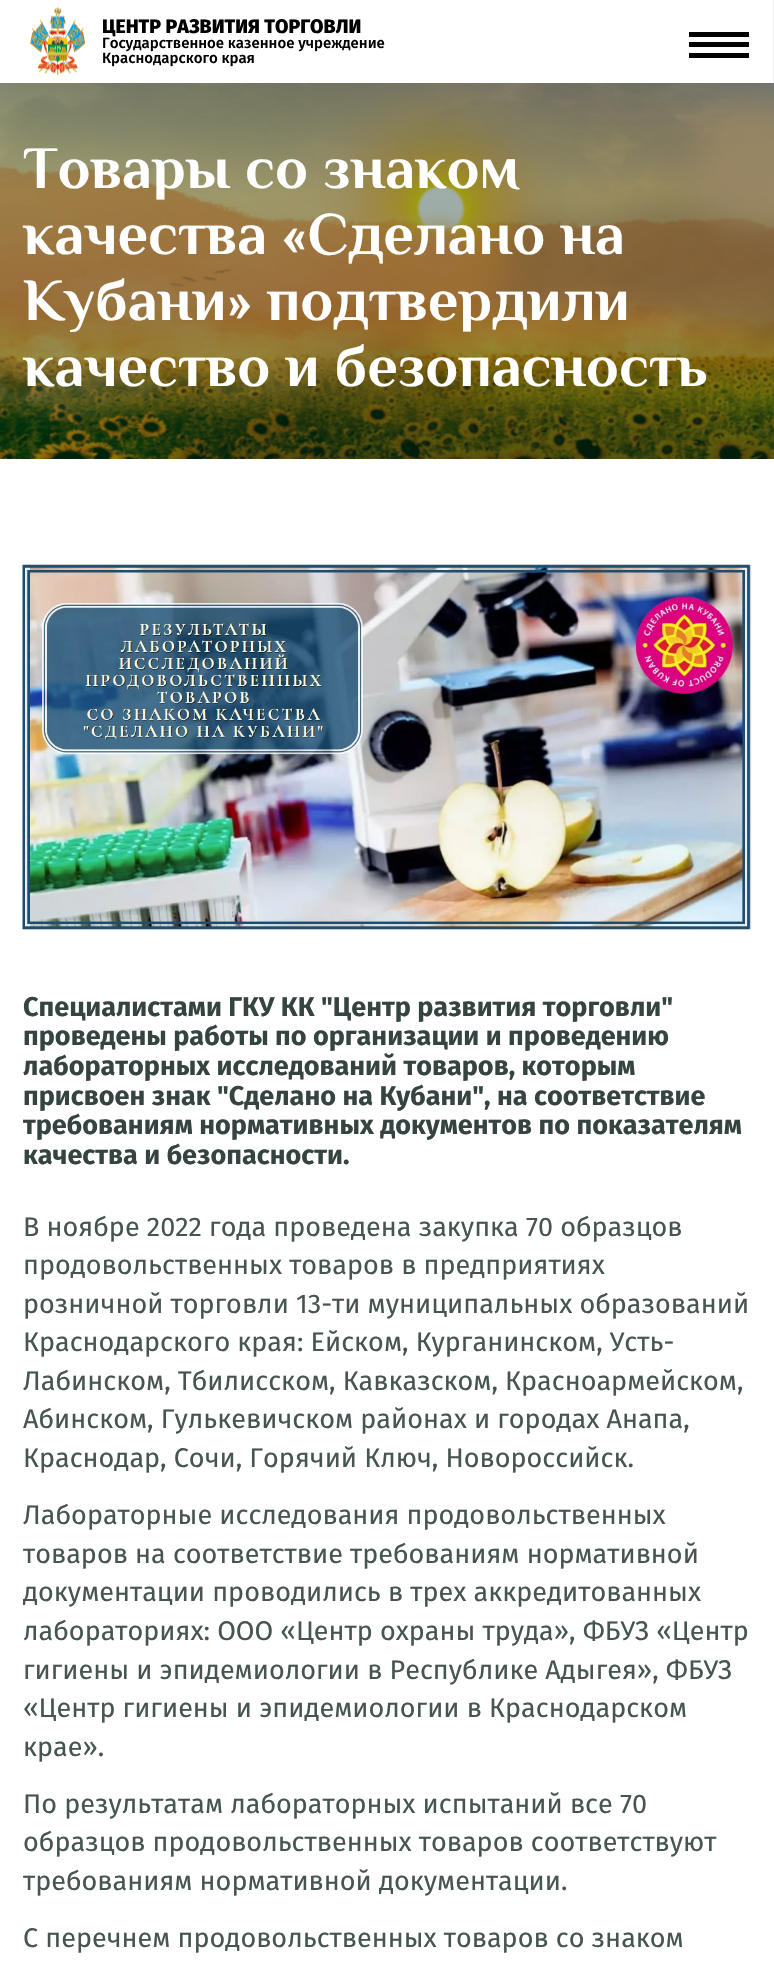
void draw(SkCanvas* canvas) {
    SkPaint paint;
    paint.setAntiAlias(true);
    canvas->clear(0xFFFFFFFF);
    canvas->drawImageRect(SkImages::DeferredFromEncodedData(SkData::MakeFromFileName("img2.png")), SkRect::MakeXYWH(0, 83, 774, 376), SkSamplingOptions());
    paint.setColor(0x1A000000);
    paint.setMaskFilter(SkMaskFilter::MakeBlur(kNormal_SkBlurStyle, 25.5f));
    canvas->drawRect(SkRect::MakeXYWH(0, 0, 774, 83), paint);
    paint.setMaskFilter(nullptr);
    paint.setColor(0xFFFFFFFF);
    canvas->drawRect(SkRect::MakeXYWH(0, 0, 773, 83), paint);
    paint.setColor(0xFFEEEEEE);
    canvas->drawRect(SkRect::MakeXYWH(773, 0, 1, 83), paint);
    canvas->drawImageRect(SkImages::DeferredFromEncodedData(SkData::MakeFromFileName("img1.png")), SkRect::MakeXYWH(30, 7, 56, 69), SkSamplingOptions());
    SkFont font1(fontMgr->matchFamilyStyle("Fira Sans", SkFontStyle(800, SkFontStyle::kNormal_Width, SkFontStyle::kUpright_Slant)), 19.5f);
    font1.setSubpixel(true);
    paint.setColor(0xFF000000);
    canvas->drawString("ЦЕНТР РАЗВИТИЯ ТОРГОВЛИ", 102, 33, font1, paint);
    SkFont font2(fontMgr->matchFamilyStyle("Fira Sans", SkFontStyle(500, SkFontStyle::kNormal_Width, SkFontStyle::kUpright_Slant)), 15);
    font2.setSubpixel(true);
    canvas->drawString("Государственное казенное учреждение", 102, 48, font2, paint);
    canvas->drawString("Краснодарского края", 102, 63, font2, paint);
    canvas->drawRect(SkRect::MakeXYWH(689, 32, 60, 5), paint);
    canvas->drawRect(SkRect::MakeXYWH(689, 42, 60, 5), paint);
    canvas->drawRect(SkRect::MakeXYWH(689, 53, 60, 5), paint);
    SkFont font3(fontMgr->matchFamilyStyle("Philosopher", SkFontStyle::Bold()), 60);
    font3.setSubpixel(true);
    paint.setColor(0xFFFFFFFF);
    canvas->drawString("Товары со знаком", 23, 188, font3, paint);
    canvas->drawString("качества «Сделано на", 23, 254, font3, paint);
    canvas->drawString("Кубани» подтвердили", 23, 320, font3, paint);
    canvas->drawString("качество и безопасность", 23, 386, font3, paint);
    canvas->drawImageRect(SkImages::DeferredFromEncodedData(SkData::MakeFromFileName("img3.png")), SkRect::MakeXYWH(22, 564, 730, 366), SkSamplingOptions());
    SkFont font4(fontMgr->matchFamilyStyle("Fira Sans", SkFontStyle::Bold()), 27);
    font4.setSubpixel(true);
    paint.setColor(0xFF364441);
    canvas->drawString("Специалистами ГКУ КК \"Центр развития торговли\"", 23, 1016, font4, paint);
    canvas->drawString("проведены работы по организации и проведению", 23, 1045, font4, paint);
    canvas->drawString("лабораторных исследований товаров, которым", 23, 1075, font4, paint);
    canvas->drawString("присвоен знак \"Сделано на Кубани\", на соответствие", 23, 1105, font4, paint);
    canvas->drawString("требованиям нормативных документов по показателям", 23, 1134, font4, paint);
    canvas->drawString("качества и безопасности.", 23, 1164, font4, paint);
    SkFont font5(fontMgr->matchFamilyStyle("Fira Sans", SkFontStyle::Normal()), 27);
    font5.setSubpixel(true);
    paint.setColor(0xFF475552);
    canvas->drawString("В ноябре 2022 года проведена закупка 70 образцов", 23, 1236, font5, paint);
    canvas->drawString("продовольственных товаров в предприятиях", 23, 1274, font5, paint);
    canvas->drawString("розничной торговли 13-ти муниципальных образований", 23, 1313, font5, paint);
    canvas->drawString("Краснодарского края: Ейском, Курганинском, Усть-", 23, 1351, font5, paint);
    canvas->drawString("Лабинском, Тбилисском, Кавказском, Красноармейском,", 23, 1390, font5, paint);
    canvas->drawString("Абинском, Гулькевичском районах и городах Анапа,", 23, 1428, font5, paint);
    canvas->drawString("Краснодар, Сочи, Горячий Ключ, Новороссийск.", 23, 1467, font5, paint);
    canvas->drawString("Лабораторные исследования продовольственных", 23, 1524, font5, paint);
    canvas->drawString("товаров на соответствие требованиям нормативной", 23, 1563, font5, paint);
    canvas->drawString("документации проводились в трех аккредитованных", 23, 1601, font5, paint);
    canvas->drawString("лабораториях: ООО «Центр охраны труда», ФБУЗ «Центр", 23, 1640, font5, paint);
    canvas->drawString("гигиены и эпидемиологии в Республике Адыгея», ФБУЗ", 23, 1679, font5, paint);
    canvas->drawString("«Центр гигиены и эпидемиологии в Краснодарском", 23, 1717, font5, paint);
    canvas->drawString("крае».", 23, 1756, font5, paint);
    canvas->drawString("По результатам лабораторных испытаний все 70", 23, 1813, font5, paint);
    canvas->drawString("образцов продовольственных товаров соответствуют", 23, 1851, font5, paint);
    canvas->drawString("требованиям нормативной документации.", 23, 1890, font5, paint);
    canvas->drawString("С перечнем продовольственных товаров со знаком", 23, 1947, font5, paint);
}
